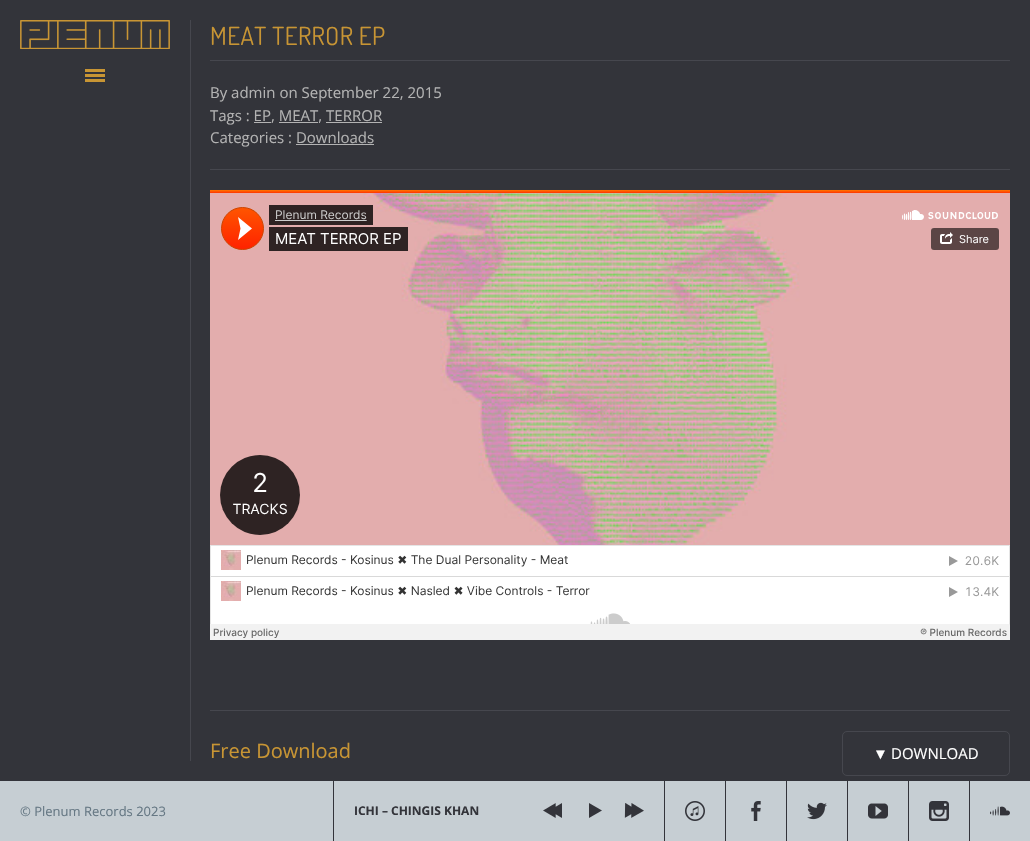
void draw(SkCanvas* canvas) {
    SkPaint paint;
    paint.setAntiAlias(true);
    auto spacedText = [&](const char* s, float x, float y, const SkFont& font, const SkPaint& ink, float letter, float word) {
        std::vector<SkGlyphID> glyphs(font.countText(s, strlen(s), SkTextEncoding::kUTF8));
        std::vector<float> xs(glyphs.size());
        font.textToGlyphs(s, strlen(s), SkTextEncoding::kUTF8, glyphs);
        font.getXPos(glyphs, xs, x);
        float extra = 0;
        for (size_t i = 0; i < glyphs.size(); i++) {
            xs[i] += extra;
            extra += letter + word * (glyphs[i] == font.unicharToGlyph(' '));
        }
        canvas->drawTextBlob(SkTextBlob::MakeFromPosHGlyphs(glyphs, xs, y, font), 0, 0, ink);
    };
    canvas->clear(0xFF33343A);
    paint.setColor(0xFF46474E);
    canvas->drawRect(SkRect::MakeXYWH(190, 20, 1, 741), paint);
    canvas->drawImageRect(SkImages::DeferredFromEncodedData(SkData::MakeFromFileName("img1.png")), SkRect::MakeXYWH(20, 20, 150, 29), SkSamplingOptions());
    paint.setColor(0xFFC89534);
    canvas->drawRect(SkRect::MakeXYWH(85, 79, 20, 3), paint);
    canvas->drawRect(SkRect::MakeXYWH(85, 74, 20, 3), paint);
    canvas->drawRect(SkRect::MakeXYWH(85, 69, 20, 3), paint);
    paint.setColor(0xFF46474E);
    canvas->drawRect(SkRect::MakeXYWH(210, 60, 800, 1), paint);
    SkFont font1(fontMgr->matchFamilyStyle("Dosis", SkFontStyle::Normal()), 25);
    font1.setSubpixel(true);
    paint.setColor(0xFFC89534);
    spacedText("MEAT TERROR EP", 210, 45, font1, paint, 0.5f, 0);
    paint.setColor(0xFF46474E);
    canvas->drawRect(SkRect::MakeXYWH(210, 169, 800, 1), paint);
    SkFont font2(fontMgr->matchFamilyStyle("Open Sans", SkFontStyle::Normal()), 15);
    font2.setSubpixel(true);
    paint.setColor(0xFFB3B3B3);
    canvas->drawString("By admin on September 22, 2015", 210, 98, font2, paint);
    canvas->drawString("Tags : EP, MEAT, TERROR", 210, 121, font2, paint);
    canvas->drawRect(SkRect::MakeXYWH(254, 122, 17, 1), paint);
    canvas->drawRect(SkRect::MakeXYWH(279, 122, 39, 1), paint);
    canvas->drawRect(SkRect::MakeXYWH(326, 122, 56, 1), paint);
    canvas->drawString("Categories : Downloads", 210, 143, font2, paint);
    canvas->drawRect(SkRect::MakeXYWH(296, 144, 78, 1), paint);
    paint.setColor(0xFF46474E);
    canvas->drawRect(SkRect::MakeXYWH(210, 710, 800, 1), paint);
    canvas->drawImageRect(SkImages::DeferredFromEncodedData(SkData::MakeFromFileName("img2.png")), SkRect::MakeXYWH(210, 190, 800, 450), SkSamplingOptions());
    SkFont font3(fontMgr->matchFamilyStyle("Open Sans", SkFontStyle::Normal()), 20);
    font3.setSubpixel(true);
    paint.setColor(0xFFC89534);
    canvas->drawString("Free Download", 210, 758, font3, paint);
    paint.setStyle(SkPaint::kStroke_Style);
    paint.setStrokeWidth(1);
    paint.setColor(0xFF46474E);
    canvas->drawRoundRect(SkRect::MakeXYWH(842.5f, 731.5f, 167, 44), 4.5f, 4.5f, paint);
    SkFont font4(fontMgr->matchFamilyStyle("Liberation Sans", SkFontStyle::Normal()), 15);
    font4.setSubpixel(true);
    paint.setStyle(SkPaint::kFill_Style);
    paint.setColor(0xFFFFFFFF);
    canvas->drawString("▼", 873, 759, font4, paint);
    canvas->drawString("DOWNLOAD", 891, 759, font2, paint);
    paint.setColor(0xFFC6CED3);
    canvas->drawRect(SkRect::MakeXYWH(0, 781, 1030, 60), paint);
    SkFont font5(fontMgr->matchFamilyStyle("Open Sans", SkFontStyle::Normal()), 13);
    font5.setSubpixel(true);
    paint.setColor(0xFF667884);
    canvas->drawString("© Plenum Records 2023", 20, 816, font5, paint);
    paint.setColor(0xFF33343A);
    canvas->drawRect(SkRect::MakeXYWH(333, 781, 1, 60), paint);
    SkFont font6(fontMgr->matchFamilyStyle("Open Sans", SkFontStyle::Bold()), 12);
    font6.setSubpixel(true);
    canvas->drawString("ICHI – CHINGIS KHAN", 354, 815, font6, paint);
    canvas->drawImageRect(SkImages::DeferredFromEncodedData(SkData::MakeFromFileName("img3.png")), SkRect::MakeXYWH(543, 803, 19, 15), SkSamplingOptions());
    canvas->drawPath(SkPathBuilder(SkPathFillType::kEvenOdd).moveTo(589, 818).lineTo(589, 803).lineTo(602, 810.5f).close().detach(), paint);
    canvas->drawImageRect(SkImages::DeferredFromEncodedData(SkData::MakeFromFileName("img4.png")), SkRect::MakeXYWH(624, 803, 20, 15), SkSamplingOptions());
    canvas->drawRect(SkRect::MakeXYWH(664, 781, 1, 60), paint);
    canvas->drawImageRect(SkImages::DeferredFromEncodedData(SkData::MakeFromFileName("img5.png")), SkRect::MakeXYWH(685, 801, 20, 20), SkSamplingOptions());
    canvas->drawRect(SkRect::MakeXYWH(725, 781, 1, 60), paint);
    canvas->drawImageRect(SkImages::DeferredFromEncodedData(SkData::MakeFromFileName("img6.png")), SkRect::MakeXYWH(751, 801, 10, 20), SkSamplingOptions());
    canvas->drawRect(SkRect::MakeXYWH(786, 781, 1, 60), paint);
    canvas->drawImageRect(SkImages::DeferredFromEncodedData(SkData::MakeFromFileName("img7.png")), SkRect::MakeXYWH(807, 802, 20, 18), SkSamplingOptions());
    canvas->drawRect(SkRect::MakeXYWH(847, 781, 1, 60), paint);
    canvas->drawImageRect(SkImages::DeferredFromEncodedData(SkData::MakeFromFileName("img8.png")), SkRect::MakeXYWH(868, 803, 20, 16), SkSamplingOptions());
    canvas->drawRect(SkRect::MakeXYWH(908, 781, 1, 60), paint);
    canvas->drawImageRect(SkImages::DeferredFromEncodedData(SkData::MakeFromFileName("img9.png")), SkRect::MakeXYWH(929, 801, 20, 20), SkSamplingOptions());
    canvas->drawRect(SkRect::MakeXYWH(969, 781, 1, 60), paint);
    canvas->drawImageRect(SkImages::DeferredFromEncodedData(SkData::MakeFromFileName("img10.png")), SkRect::MakeXYWH(990, 806, 20, 10), SkSamplingOptions());
}
